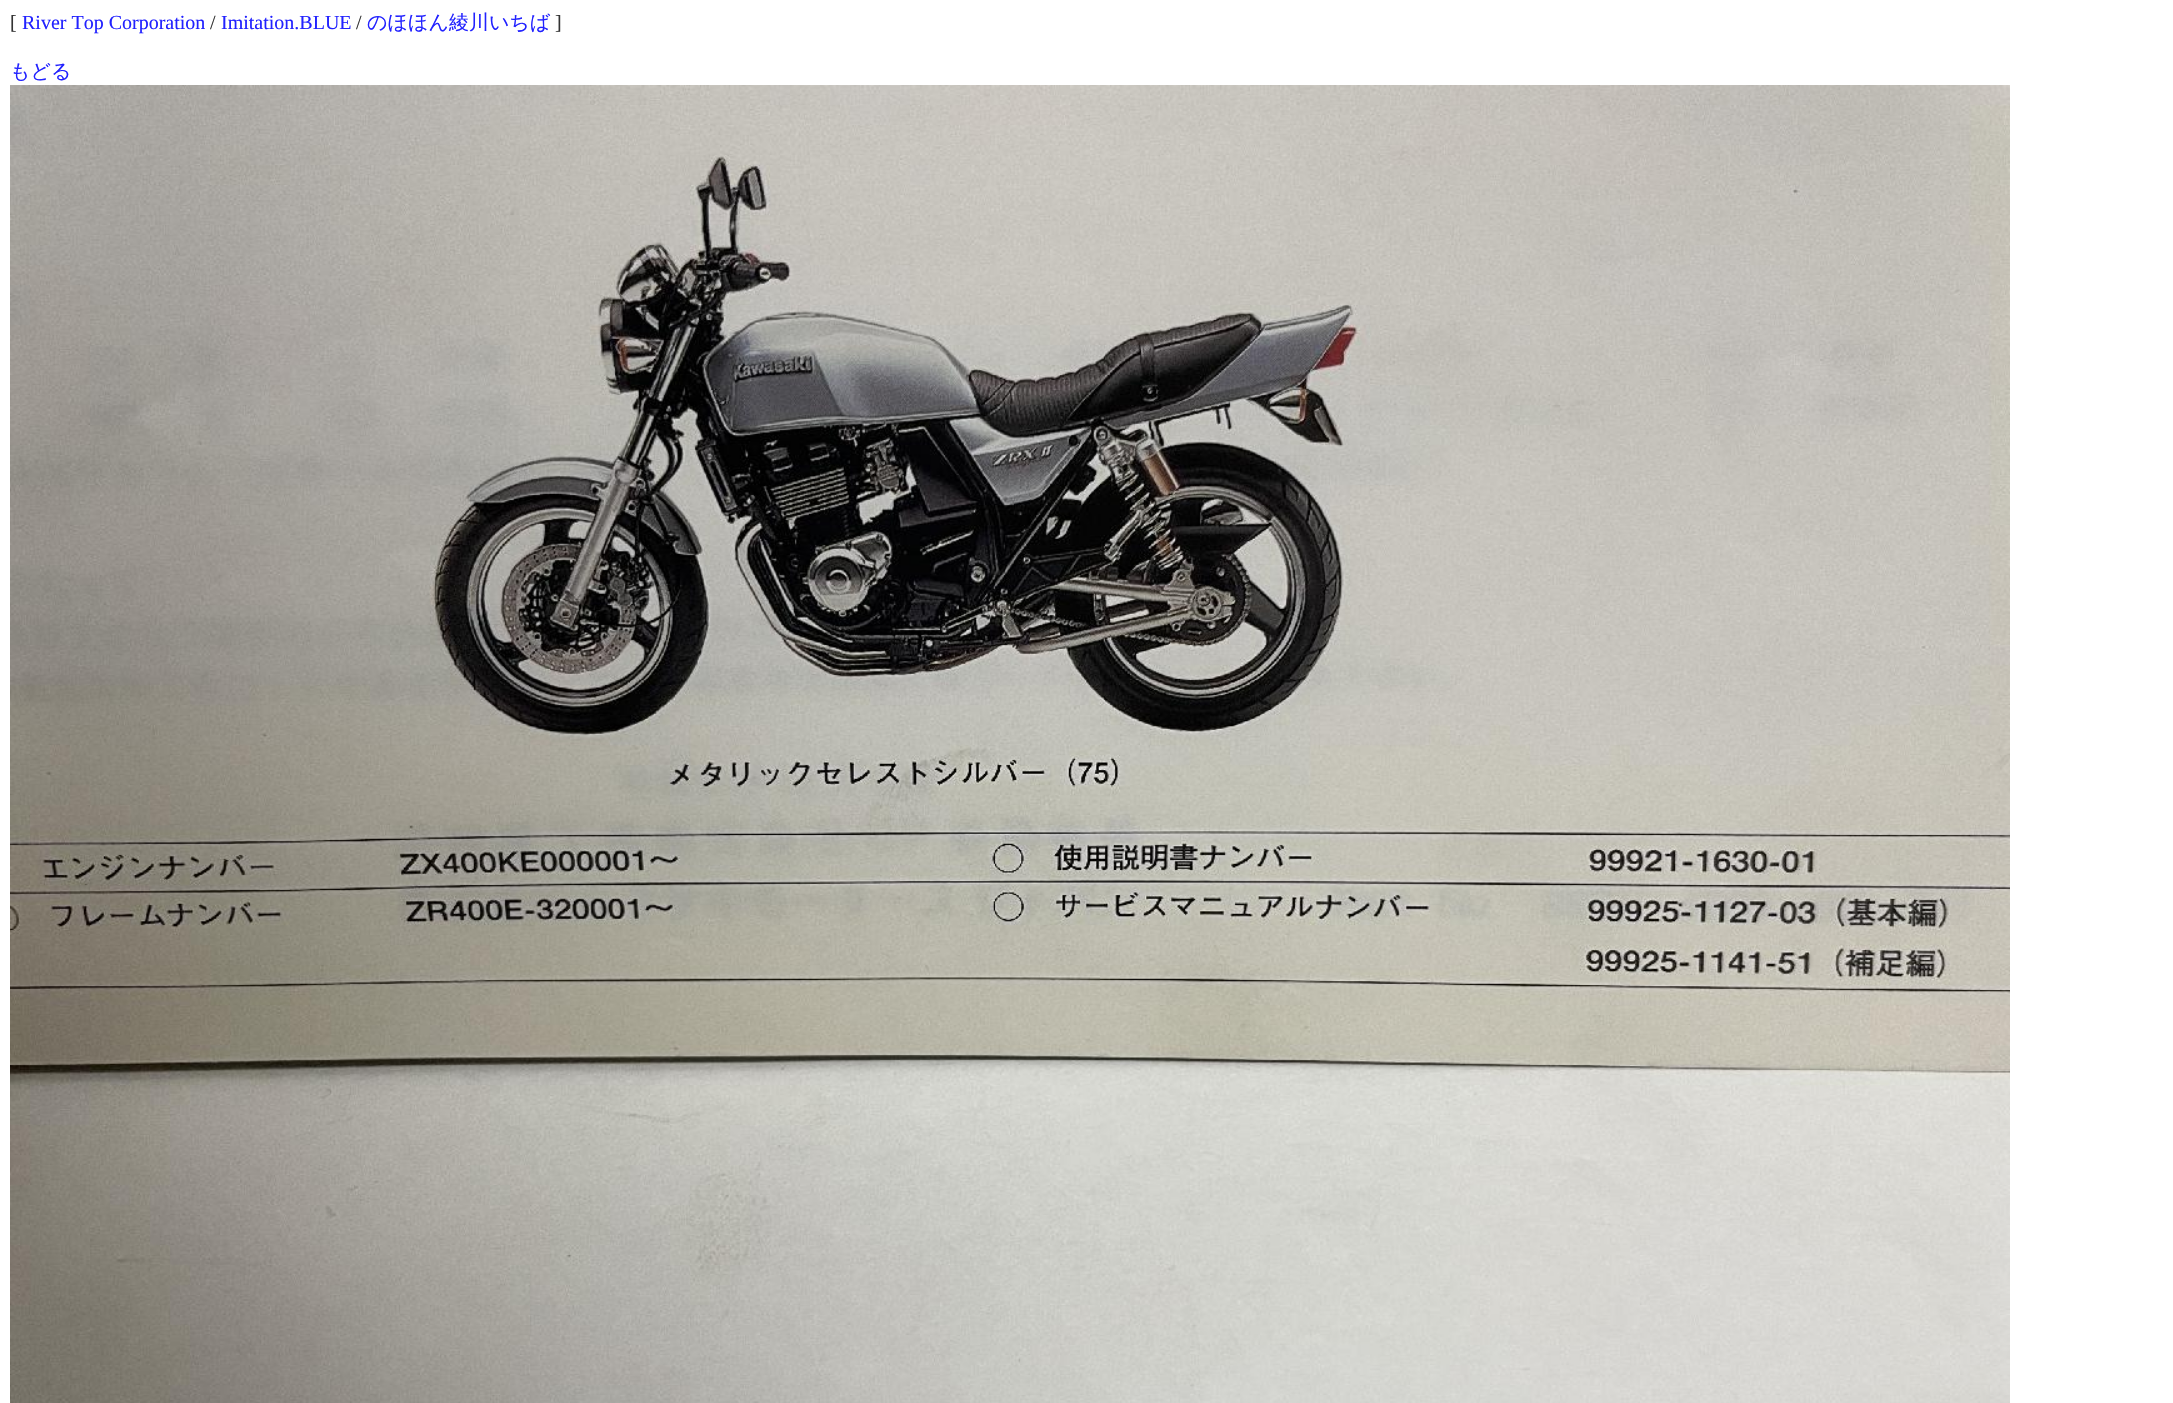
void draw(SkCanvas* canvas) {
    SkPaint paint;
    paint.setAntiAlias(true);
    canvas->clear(0xFFFFFFFF);
    SkFont font1(fontMgr->matchFamilyStyle("Liberation Serif", SkFontStyle::Normal()), 20);
    font1.setSubpixel(true);
    paint.setColor(0xFF333333);
    canvas->drawString("[", 10, 29, font1, paint);
    paint.setColor(0xFF2222FF);
    canvas->drawString("River Top Corporation", 22, 29, font1, paint);
    paint.setColor(0xFF333333);
    canvas->drawString("/", 210, 29, font1, paint);
    paint.setColor(0xFF2222FF);
    canvas->drawString("Imitation.BLUE", 221, 29, font1, paint);
    paint.setColor(0xFF333333);
    canvas->drawString("/", 356, 29, font1, paint);
    SkFont font2(fontMgr->matchFamilyStyle("WenQuanYi Zen Hei", SkFontStyle(500, SkFontStyle::kNormal_Width, SkFontStyle::kUpright_Slant)), 20);
    font2.setSubpixel(true);
    paint.setColor(0xFF2222FF);
    canvas->drawString("のほほん綾川いちば", 367, 29, font2, paint);
    paint.setColor(0xFF333333);
    canvas->drawString("]", 555, 29, font1, paint);
    paint.setColor(0xFF2222FF);
    canvas->drawString("もどる", 10, 78, font2, paint);
    canvas->drawImageRect(SkImages::DeferredFromEncodedData(SkData::MakeFromFileName("img1.png")), SkRect::MakeXYWH(10, 85, 2000, 1318), SkSamplingOptions());
}
